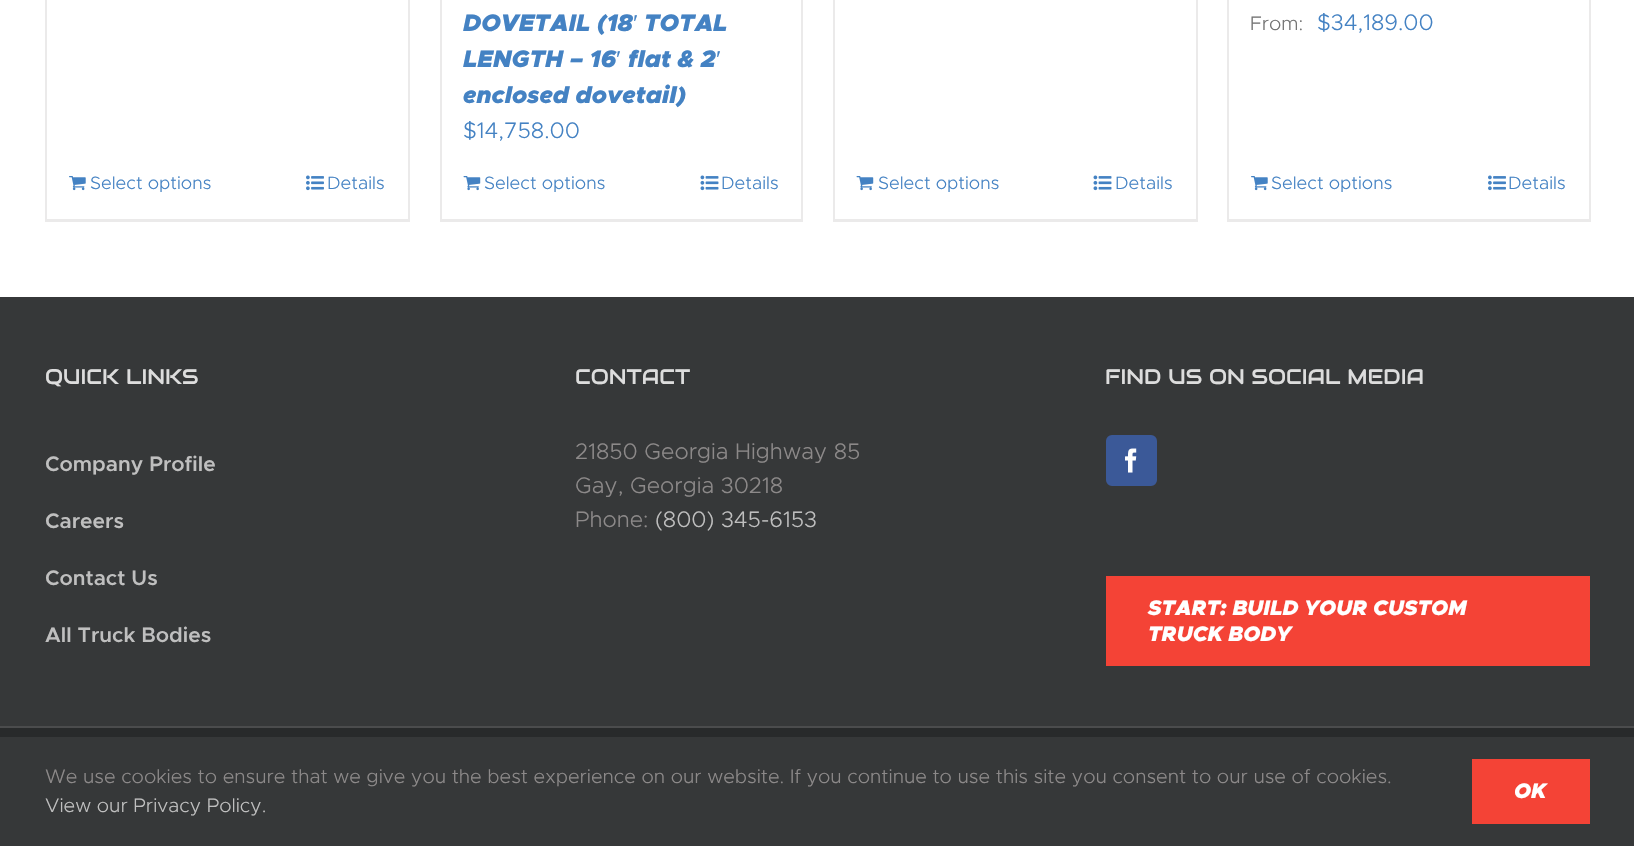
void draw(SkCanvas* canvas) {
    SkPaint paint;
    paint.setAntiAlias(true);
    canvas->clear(0xFFFFFFFF);
    paint.setColor(0xFFEBEAEA);
    canvas->drawRect(SkRect::MakeXYWH(408, 0, 2, 222), paint);
    canvas->drawRect(SkRect::MakeXYWH(45, 219, 365, 3), paint);
    canvas->drawRect(SkRect::MakeXYWH(45, 0, 2, 222), paint);
    canvas->drawImageRect(SkImages::DeferredFromEncodedData(SkData::MakeFromFileName("img1.png")), SkRect::MakeXYWH(69, 176, 17, 15), SkSamplingOptions());
    SkFont font1(fontMgr->matchFamilyStyle("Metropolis", SkFontStyle(300, SkFontStyle::kNormal_Width, SkFontStyle::kUpright_Slant)), 18);
    font1.setSubpixel(true);
    paint.setColor(0xFF4482C3);
    canvas->drawString("Select options", 90, 189, font1, paint);
    canvas->drawImageRect(SkImages::DeferredFromEncodedData(SkData::MakeFromFileName("img2.png")), SkRect::MakeXYWH(306, 175, 18, 16), SkSamplingOptions());
    canvas->drawString("Details", 327, 189, font1, paint);
    paint.setColor(0xFFEBEAEA);
    canvas->drawRect(SkRect::MakeXYWH(801, 0, 2, 222), paint);
    canvas->drawRect(SkRect::MakeXYWH(440, 219, 363, 3), paint);
    canvas->drawRect(SkRect::MakeXYWH(440, 0, 2, 222), paint);
    SkFont font2(fontMgr->matchFamilyStyle("Metropolis", SkFontStyle(900, SkFontStyle::kNormal_Width, SkFontStyle::kItalic_Slant)), 24);
    font2.setSubpixel(true);
    paint.setColor(0xFF4482C3);
    canvas->drawString("DOVETAIL (18", 463, 31, font2, paint);
    SkFont font3(fontMgr->matchFamilyStyle("Liberation Serif", SkFontStyle::Normal()), 24);
    font3.setSubpixel(true);
    canvas->drawString("′", 633, 31, font3, paint);
    canvas->drawString("TOTAL", 644, 31, font2, paint);
    canvas->drawString("LENGTH – 16", 463, 67, font2, paint);
    canvas->drawString("′", 616, 67, font3, paint);
    canvas->drawString("flat & 2", 628, 67, font2, paint);
    canvas->drawString("′", 716, 67, font3, paint);
    canvas->drawString("enclosed dovetail)", 463, 103, font2, paint);
    SkFont font4(fontMgr->matchFamilyStyle("Metropolis", SkFontStyle(300, SkFontStyle::kNormal_Width, SkFontStyle::kUpright_Slant)), 22.5f);
    font4.setSubpixel(true);
    canvas->drawString("$14,758.00", 463, 138, font4, paint);
    canvas->drawImageRect(SkImages::DeferredFromEncodedData(SkData::MakeFromFileName("img3.png")), SkRect::MakeXYWH(463, 176, 18, 15), SkSamplingOptions());
    canvas->drawString("Select options", 484, 189, font1, paint);
    canvas->drawImageRect(SkImages::DeferredFromEncodedData(SkData::MakeFromFileName("img4.png")), SkRect::MakeXYWH(700, 175, 19, 16), SkSamplingOptions());
    canvas->drawString("Details", 721, 189, font1, paint);
    paint.setColor(0xFFEBEAEA);
    canvas->drawRect(SkRect::MakeXYWH(1196, 0, 2, 222), paint);
    canvas->drawRect(SkRect::MakeXYWH(833, 219, 364, 3), paint);
    canvas->drawRect(SkRect::MakeXYWH(833, 0, 2, 222), paint);
    canvas->drawImageRect(SkImages::DeferredFromEncodedData(SkData::MakeFromFileName("img3.png")), SkRect::MakeXYWH(856, 176, 18, 15), SkSamplingOptions());
    paint.setColor(0xFF4482C3);
    canvas->drawString("Select options", 878, 189, font1, paint);
    canvas->drawImageRect(SkImages::DeferredFromEncodedData(SkData::MakeFromFileName("img4.png")), SkRect::MakeXYWH(1093, 175, 19, 16), SkSamplingOptions());
    canvas->drawString("Details", 1115, 189, font1, paint);
    paint.setColor(0xFFEBEAEA);
    canvas->drawRect(SkRect::MakeXYWH(1589, 0, 2, 222), paint);
    canvas->drawRect(SkRect::MakeXYWH(1227, 219, 363, 3), paint);
    canvas->drawRect(SkRect::MakeXYWH(1227, 0, 2, 222), paint);
    SkFont font5(fontMgr->matchFamilyStyle("Metropolis", SkFontStyle(300, SkFontStyle::kNormal_Width, SkFontStyle::kUpright_Slant)), 19.5f);
    font5.setSubpixel(true);
    paint.setColor(0xFF747474);
    canvas->drawString("From:", 1250, 30, font5, paint);
    paint.setColor(0xFF4482C3);
    canvas->drawString("$34,189.00", 1317, 30, font4, paint);
    canvas->drawImageRect(SkImages::DeferredFromEncodedData(SkData::MakeFromFileName("img1.png")), SkRect::MakeXYWH(1251, 176, 17, 15), SkSamplingOptions());
    canvas->drawString("Select options", 1271, 189, font1, paint);
    canvas->drawImageRect(SkImages::DeferredFromEncodedData(SkData::MakeFromFileName("img2.png")), SkRect::MakeXYWH(1488, 175, 18, 16), SkSamplingOptions());
    canvas->drawString("Details", 1508, 189, font1, paint);
    paint.setColor(0xFF363839);
    canvas->drawRect(SkRect::MakeXYWH(0, 297, 1634, 429), paint);
    SkFont font6(fontMgr->matchFamilyStyle("Audiowide", SkFontStyle::Normal()), 21);
    font6.setSubpixel(true);
    paint.setColor(0xFFDDDDDD);
    canvas->drawString("QUICK LINKS", 45, 384, font6, paint);
    SkFont font7(fontMgr->matchFamilyStyle("Metropolis", SkFontStyle(600, SkFontStyle::kNormal_Width, SkFontStyle::kUpright_Slant)), 21);
    font7.setSubpixel(true);
    paint.setColor(0xFFBFBFBF);
    canvas->drawString("Company Profile", 45, 471, font7, paint);
    canvas->drawString("Careers", 45, 528, font7, paint);
    canvas->drawString("Contact Us", 45, 585, font7, paint);
    canvas->drawString("All Truck Bodies", 45, 642, font7, paint);
    paint.setColor(0xFFDDDDDD);
    canvas->drawString("CONTACT", 575, 384, font6, paint);
    paint.setColor(0xFF8C8989);
    canvas->drawString("21850 Georgia Highway 85", 575, 459, font4, paint);
    canvas->drawString("Gay, Georgia 30218", 575, 493, font4, paint);
    canvas->drawString("Phone:", 575, 527, font4, paint);
    paint.setColor(0xFFBFBFBF);
    canvas->drawString("(800) 345-6153", 655, 527, font4, paint);
    paint.setColor(0xFFDDDDDD);
    canvas->drawString("FIND US ON SOCIAL MEDIA", 1105, 384, font6, paint);
    paint.setColor(0xFF3B5998);
    canvas->drawRoundRect(SkRect::MakeXYWH(1107, 436, 49, 49), 5, 5, paint);
    paint.setStyle(SkPaint::kStroke_Style);
    paint.setStrokeWidth(2);
    canvas->drawRoundRect(SkRect::MakeXYWH(1107, 436, 49, 49), 5, 5, paint);
    canvas->drawImageRect(SkImages::DeferredFromEncodedData(SkData::MakeFromFileName("img5.png")), SkRect::MakeXYWH(1125, 448, 12, 25), SkSamplingOptions());
    paint.setStyle(SkPaint::kFill_Style);
    paint.setColor(0xFFF44336);
    canvas->drawRect(SkRect::MakeXYWH(1106, 576, 484, 90), paint);
    SkFont font8(fontMgr->matchFamilyStyle("Metropolis", SkFontStyle(900, SkFontStyle::kNormal_Width, SkFontStyle::kItalic_Slant)), 21);
    font8.setSubpixel(true);
    paint.setColor(0xFFFFFFFF);
    canvas->drawString("START: BUILD YOUR CUSTOM", 1148, 615, font8, paint);
    canvas->drawString("TRUCK BODY", 1148, 641, font8, paint);
    paint.setColor(0xFF282A2B);
    canvas->drawRect(SkRect::MakeXYWH(0, 728, 1634, 9), paint);
    paint.setColor(0xFF4B4C4D);
    canvas->drawRect(SkRect::MakeXYWH(0, 726, 1634, 2), paint);
    paint.setColor(0xFF363839);
    canvas->drawRect(SkRect::MakeXYWH(0, 737, 1634, 109), paint);
    paint.setColor(0xFF8C8989);
    canvas->drawString("We use cookies to ensure that we give you the best experience on our website. If you continue to use this site you consent to our use of cookies.", 45, 783, font5, paint);
    paint.setColor(0xFFBFBFBF);
    canvas->drawString("View our Privacy Policy.", 45, 812, font5, paint);
    paint.setColor(0xFFF44336);
    canvas->drawRect(SkRect::MakeXYWH(1472, 759, 118, 65), paint);
    paint.setColor(0xFFFFFFFF);
    canvas->drawString("OK", 1514, 798, font8, paint);
}
